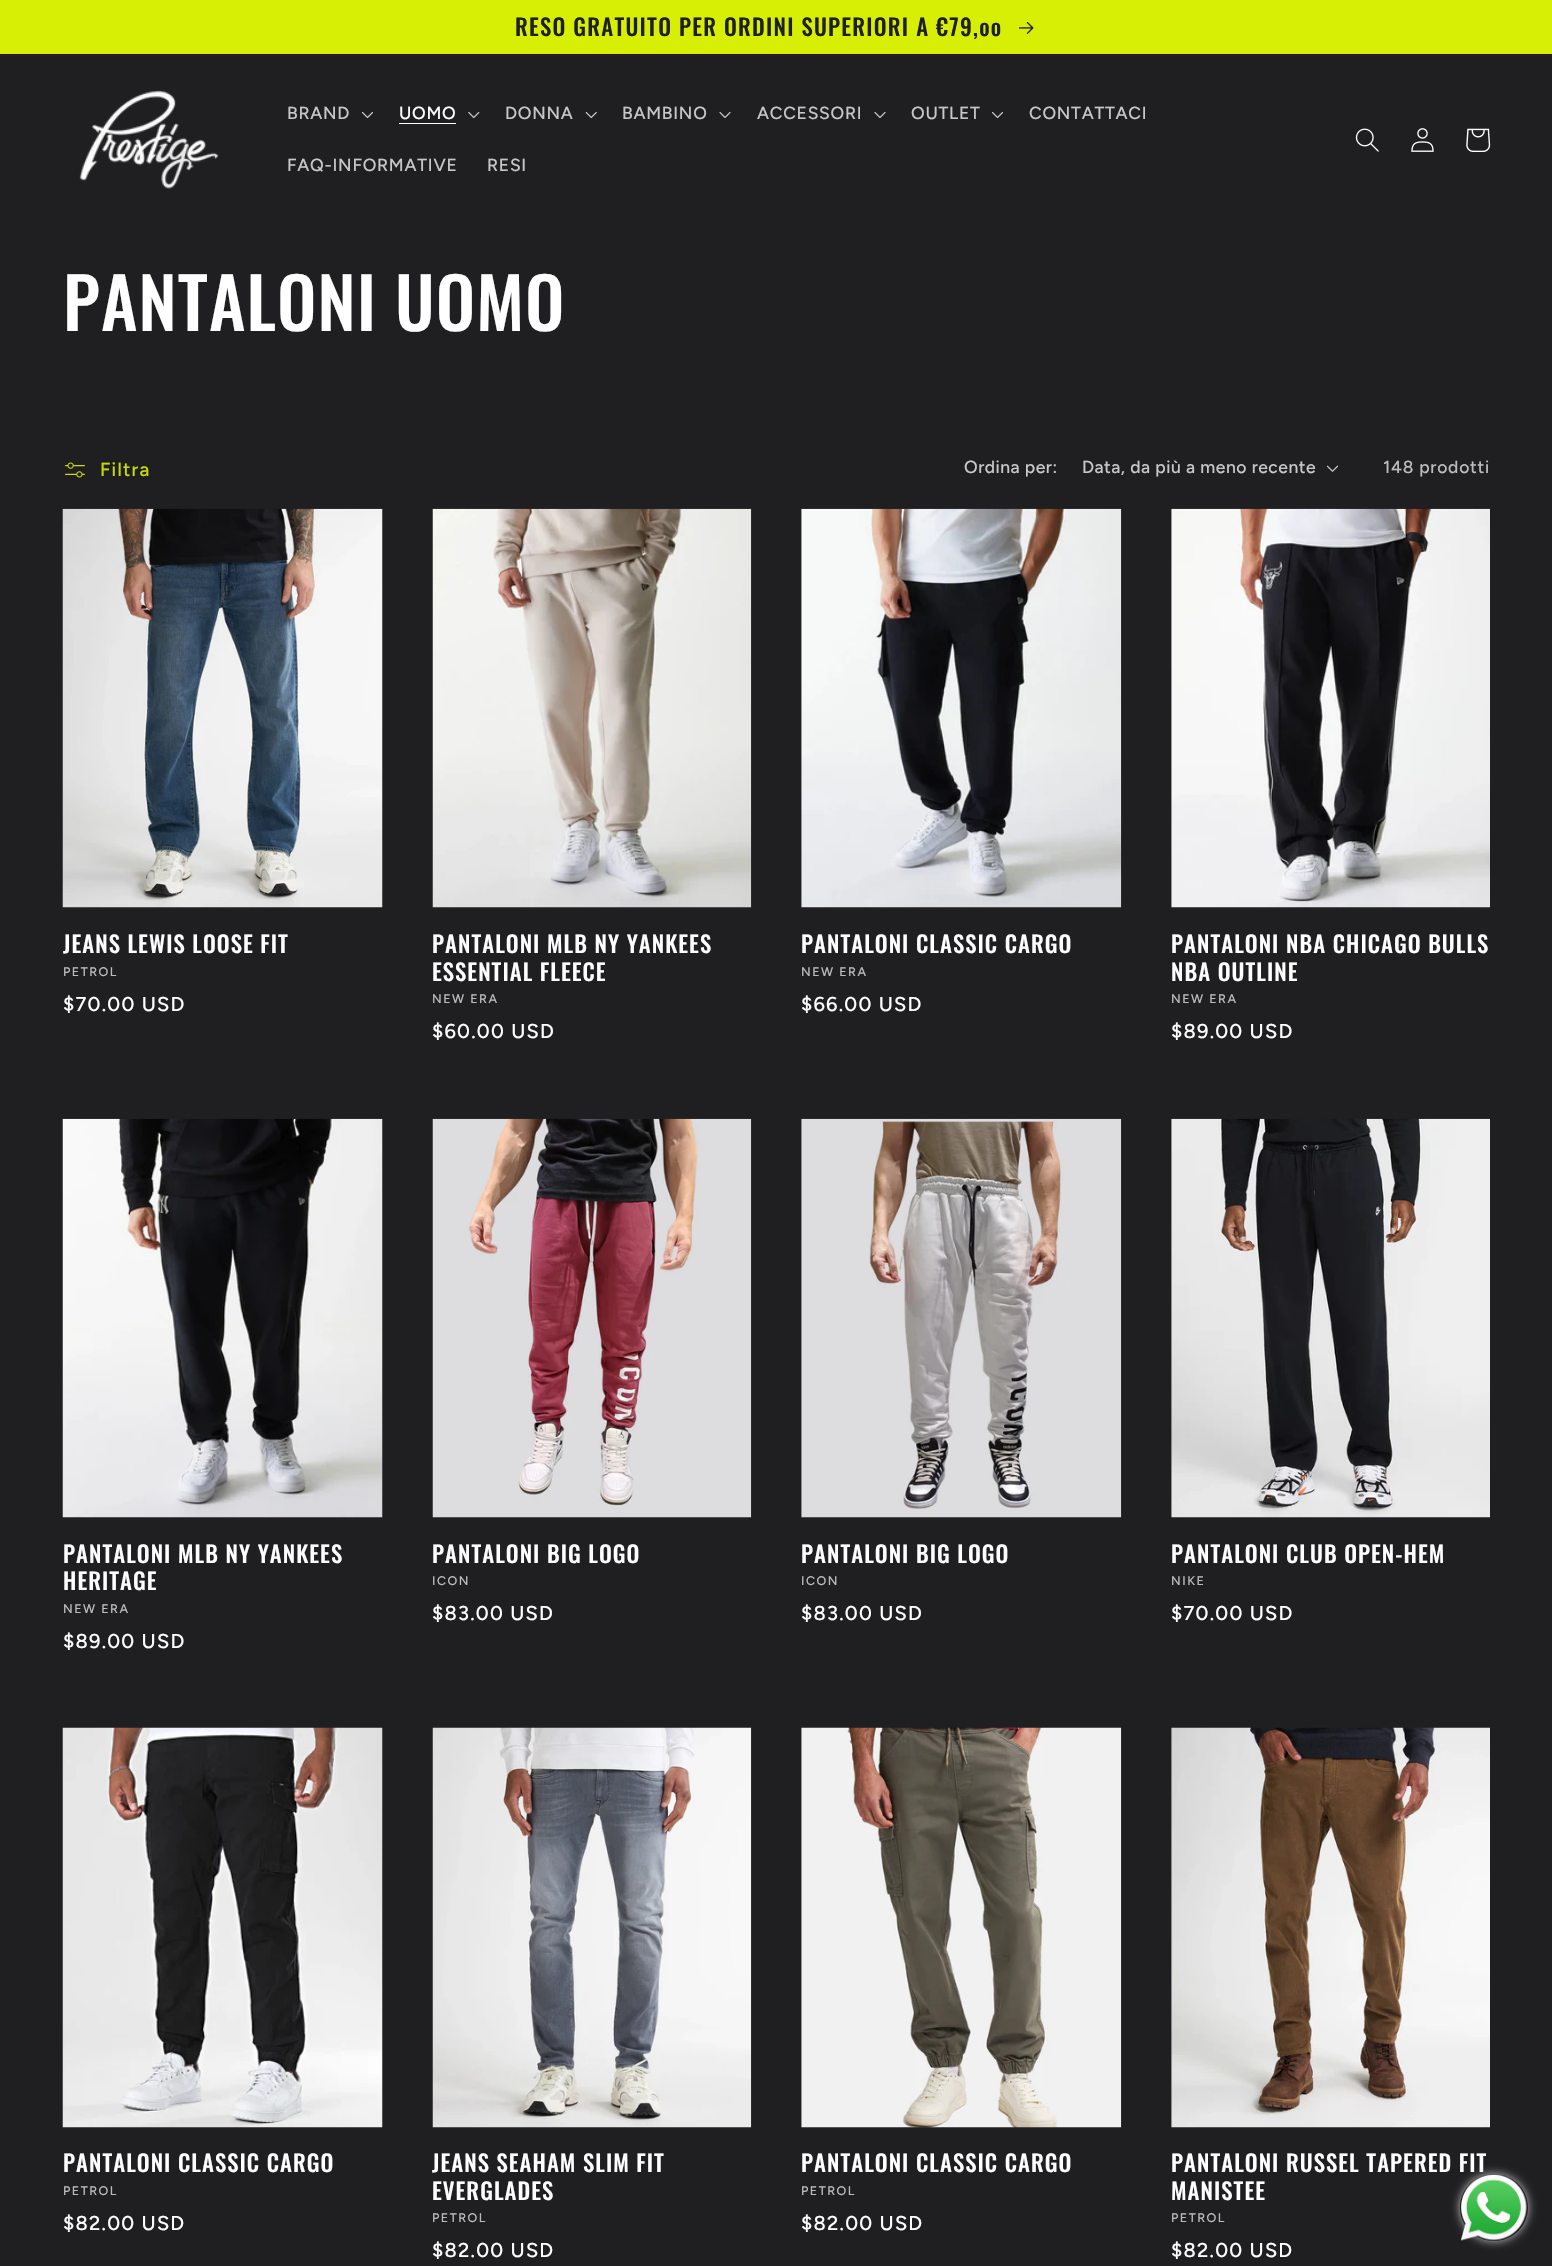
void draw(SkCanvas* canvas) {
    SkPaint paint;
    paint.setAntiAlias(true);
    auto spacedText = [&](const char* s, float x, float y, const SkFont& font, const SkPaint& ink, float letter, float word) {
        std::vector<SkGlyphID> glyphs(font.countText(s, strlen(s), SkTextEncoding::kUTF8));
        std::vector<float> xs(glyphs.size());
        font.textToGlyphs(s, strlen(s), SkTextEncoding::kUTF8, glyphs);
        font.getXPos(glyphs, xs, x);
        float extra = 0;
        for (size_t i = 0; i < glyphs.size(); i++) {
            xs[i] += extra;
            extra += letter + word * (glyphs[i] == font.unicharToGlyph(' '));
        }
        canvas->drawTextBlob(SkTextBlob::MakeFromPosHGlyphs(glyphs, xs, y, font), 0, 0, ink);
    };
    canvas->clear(0xFF1F1F21);
    paint.setColor(0xFFD3EA04);
    canvas->drawRect(SkRect::MakeXYWH(0, 53, 1552, 1), paint);
    paint.setColor(0xFFD7EF04);
    canvas->drawRect(SkRect::MakeXYWH(0, 0, 1552, 53), paint);
    SkFont font1(fontMgr->matchFamilyStyle("Oswald", SkFontStyle(500, SkFontStyle::kNormal_Width, SkFontStyle::kUpright_Slant)), 22.75f);
    font1.setSubpixel(true);
    paint.setColor(0xFF1F1F21);
    spacedText("RESO GRATUITO PER ORDINI SUPERIORI A €79,oo", 515, 36, font1, paint, 1.25f, 0);
    canvas->drawImageRect(SkImages::DeferredFromEncodedData(SkData::MakeFromFileName("img1.png")), SkRect::MakeXYWH(1019, 21, 15, 13), SkSamplingOptions());
    canvas->drawImageRect(SkImages::DeferredFromEncodedData(SkData::MakeFromFileName("img2.png")), SkRect::MakeXYWH(79, 90, 140, 99), SkSamplingOptions());
    SkFont font2(fontMgr->matchFamilyStyle("Figtree", SkFontStyle(500, SkFontStyle::kNormal_Width, SkFontStyle::kUpright_Slant)), 17.5f);
    font2.setSubpixel(true);
    paint.setColor(0xFFC7C7C8);
    spacedText("BRAND", 287, 119, font2, paint, 0.75f, 0);
    canvas->drawImageRect(SkImages::DeferredFromEncodedData(SkData::MakeFromFileName("img3.png")), SkRect::MakeXYWH(361, 111, 13, 8), SkSamplingOptions());
    paint.setColor(0xFFFFFFFF);
    spacedText("UOMO", 399, 119, font2, paint, 0.75f, 0);
    canvas->drawRect(SkRect::MakeXYWH(399, 123, 57, 1), paint);
    canvas->drawImageRect(SkImages::DeferredFromEncodedData(SkData::MakeFromFileName("img4.png")), SkRect::MakeXYWH(468, 111, 12, 8), SkSamplingOptions());
    paint.setColor(0xFFC7C7C8);
    spacedText("DONNA", 505, 119, font2, paint, 0.75f, 0);
    canvas->drawImageRect(SkImages::DeferredFromEncodedData(SkData::MakeFromFileName("img5.png")), SkRect::MakeXYWH(585, 111, 12, 8), SkSamplingOptions());
    spacedText("BAMBINO", 622, 119, font2, paint, 0.75f, 0);
    canvas->drawImageRect(SkImages::DeferredFromEncodedData(SkData::MakeFromFileName("img6.png")), SkRect::MakeXYWH(719, 112, 12, 6), SkSamplingOptions());
    spacedText("ACCESSORI", 757, 119, font2, paint, 0.75f, 0);
    canvas->drawImageRect(SkImages::DeferredFromEncodedData(SkData::MakeFromFileName("img6.png")), SkRect::MakeXYWH(874, 112, 12, 6), SkSamplingOptions());
    spacedText("OUTLET", 911, 119, font2, paint, 0.75f, 0);
    canvas->drawImageRect(SkImages::DeferredFromEncodedData(SkData::MakeFromFileName("img3.png")), SkRect::MakeXYWH(991, 111, 13, 8), SkSamplingOptions());
    spacedText("CONTATTACI", 1029, 119, font2, paint, 0.75f, 0);
    spacedText("FAQ-INFORMATIVE", 287, 171, font2, paint, 0.75f, 0);
    spacedText("RESI", 487, 171, font2, paint, 0.75f, 0);
    canvas->drawImageRect(SkImages::DeferredFromEncodedData(SkData::MakeFromFileName("img7.png")), SkRect::MakeXYWH(1355, 128, 24, 24), SkSamplingOptions());
    canvas->drawImageRect(SkImages::DeferredFromEncodedData(SkData::MakeFromFileName("img8.png")), SkRect::MakeXYWH(1411, 128, 23, 24), SkSamplingOptions());
    canvas->drawImageRect(SkImages::DeferredFromEncodedData(SkData::MakeFromFileName("img9.png")), SkRect::MakeXYWH(1466, 128, 25, 24), SkSamplingOptions());
    SkFont font3(fontMgr->matchFamilyStyle("Oswald", SkFontStyle(500, SkFontStyle::kNormal_Width, SkFontStyle::kUpright_Slant)), 70);
    font3.setSubpixel(true);
    paint.setColor(0xFFFFFFFF);
    spacedText("PANTALONI UOMO", 63, 331, font3, paint, 1.05f, 0);
    canvas->drawImageRect(SkImages::DeferredFromEncodedData(SkData::MakeFromFileName("img10.png")), SkRect::MakeXYWH(65, 462, 20, 16), SkSamplingOptions());
    SkFont font4(fontMgr->matchFamilyStyle("Figtree", SkFontStyle(500, SkFontStyle::kNormal_Width, SkFontStyle::kUpright_Slant)), 19);
    font4.setSubpixel(true);
    paint.setColor(0xFFC6DB07);
    spacedText("Filtra", 100, 476, font4, paint, 1.25f, 0);
    paint.setColor(0xFFC7C7C8);
    spacedText("Ordina per:", 964, 473, font2, paint, 0.5f, 0);
    spacedText("Data, da più a meno recente", 1082, 473, font2, paint, 0.5f, 0);
    canvas->drawImageRect(SkImages::DeferredFromEncodedData(SkData::MakeFromFileName("img11.png")), SkRect::MakeXYWH(1326, 465, 13, 7), SkSamplingOptions());
    paint.setColor(0xFFBCBCBC);
    spacedText("148 prodotti", 1383, 473, font2, paint, 0.75f, 0);
    canvas->drawImageRect(SkImages::DeferredFromEncodedData(SkData::MakeFromFileName("img12.png")), SkRect::MakeXYWH(62, 508, 321, 400), SkSamplingOptions());
    paint.setColor(0xFFFFFFFF);
    spacedText("JEANS LEWIS LOOSE FIT", 63, 953, font1, paint, 1.05f, 0);
    SkFont font5(fontMgr->matchFamilyStyle("Figtree", SkFontStyle(500, SkFontStyle::kNormal_Width, SkFontStyle::kUpright_Slant)), 12.5f);
    font5.setSubpixel(true);
    paint.setColor(0xFFBCBCBC);
    spacedText("PETROL", 63, 976, font5, paint, 1.5f, 0);
    SkFont font6(fontMgr->matchFamilyStyle("Figtree", SkFontStyle(500, SkFontStyle::kNormal_Width, SkFontStyle::kUpright_Slant)), 20);
    font6.setSubpixel(true);
    paint.setColor(0xFFFFFFFF);
    spacedText("$70.00 USD", 63, 1011, font6, paint, 1.25f, 0);
    canvas->drawImageRect(SkImages::DeferredFromEncodedData(SkData::MakeFromFileName("img13.png")), SkRect::MakeXYWH(432, 508, 320, 400), SkSamplingOptions());
    spacedText("PANTALONI MLB NY YANKEES", 432, 953, font1, paint, 1.05f, 0);
    spacedText("ESSENTIAL FLEECE", 432, 981, font1, paint, 1.05f, 0);
    paint.setColor(0xFFBCBCBC);
    spacedText("NEW ERA", 432, 1003, font5, paint, 1.5f, 0);
    paint.setColor(0xFFFFFFFF);
    spacedText("$60.00 USD", 432, 1038, font6, paint, 1.25f, 0);
    canvas->drawImageRect(SkImages::DeferredFromEncodedData(SkData::MakeFromFileName("img14.png")), SkRect::MakeXYWH(801, 508, 321, 400), SkSamplingOptions());
    spacedText("PANTALONI CLASSIC CARGO", 801, 953, font1, paint, 1.05f, 0);
    paint.setColor(0xFFBCBCBC);
    spacedText("NEW ERA", 801, 976, font5, paint, 1.5f, 0);
    paint.setColor(0xFFFFFFFF);
    spacedText("$66.00 USD", 801, 1011, font6, paint, 1.25f, 0);
    canvas->drawImageRect(SkImages::DeferredFromEncodedData(SkData::MakeFromFileName("img15.png")), SkRect::MakeXYWH(1171, 508, 319, 400), SkSamplingOptions());
    spacedText("PANTALONI NBA CHICAGO BULLS", 1171, 953, font1, paint, 1.05f, 0);
    spacedText("NBA OUTLINE", 1171, 981, font1, paint, 1.05f, 0);
    paint.setColor(0xFFBCBCBC);
    spacedText("NEW ERA", 1171, 1003, font5, paint, 1.5f, 0);
    paint.setColor(0xFFFFFFFF);
    spacedText("$89.00 USD", 1171, 1038, font6, paint, 1.25f, 0);
    canvas->drawImageRect(SkImages::DeferredFromEncodedData(SkData::MakeFromFileName("img16.png")), SkRect::MakeXYWH(62, 1118, 321, 400), SkSamplingOptions());
    spacedText("PANTALONI MLB NY YANKEES", 63, 1563, font1, paint, 1.05f, 0);
    spacedText("HERITAGE", 63, 1590, font1, paint, 1.05f, 0);
    paint.setColor(0xFFBCBCBC);
    spacedText("NEW ERA", 63, 1613, font5, paint, 1.5f, 0);
    paint.setColor(0xFFFFFFFF);
    spacedText("$89.00 USD", 63, 1648, font6, paint, 1.25f, 0);
    canvas->drawImageRect(SkImages::DeferredFromEncodedData(SkData::MakeFromFileName("img17.png")), SkRect::MakeXYWH(432, 1118, 320, 400), SkSamplingOptions());
    spacedText("PANTALONI BIG LOGO", 432, 1563, font1, paint, 1.05f, 0);
    paint.setColor(0xFFBCBCBC);
    spacedText("ICON", 432, 1585, font5, paint, 1.5f, 0);
    paint.setColor(0xFFFFFFFF);
    spacedText("$83.00 USD", 432, 1620, font6, paint, 1.25f, 0);
    canvas->drawImageRect(SkImages::DeferredFromEncodedData(SkData::MakeFromFileName("img18.png")), SkRect::MakeXYWH(801, 1118, 321, 400), SkSamplingOptions());
    spacedText("PANTALONI BIG LOGO", 801, 1563, font1, paint, 1.05f, 0);
    paint.setColor(0xFFBCBCBC);
    spacedText("ICON", 801, 1585, font5, paint, 1.5f, 0);
    paint.setColor(0xFFFFFFFF);
    spacedText("$83.00 USD", 801, 1620, font6, paint, 1.25f, 0);
    canvas->drawImageRect(SkImages::DeferredFromEncodedData(SkData::MakeFromFileName("img19.png")), SkRect::MakeXYWH(1171, 1118, 319, 400), SkSamplingOptions());
    spacedText("PANTALONI CLUB OPEN-HEM", 1171, 1563, font1, paint, 1.05f, 0);
    paint.setColor(0xFFBCBCBC);
    spacedText("NIKE", 1171, 1585, font5, paint, 1.5f, 0);
    paint.setColor(0xFFFFFFFF);
    spacedText("$70.00 USD", 1171, 1620, font6, paint, 1.25f, 0);
    canvas->drawImageRect(SkImages::DeferredFromEncodedData(SkData::MakeFromFileName("img20.png")), SkRect::MakeXYWH(62, 1727, 321, 401), SkSamplingOptions());
    spacedText("PANTALONI CLASSIC CARGO", 63, 2172, font1, paint, 1.05f, 0);
    paint.setColor(0xFFBCBCBC);
    spacedText("PETROL", 63, 2195, font5, paint, 1.5f, 0);
    paint.setColor(0xFFFFFFFF);
    spacedText("$82.00 USD", 63, 2230, font6, paint, 1.25f, 0);
    canvas->drawImageRect(SkImages::DeferredFromEncodedData(SkData::MakeFromFileName("img21.png")), SkRect::MakeXYWH(432, 1727, 320, 401), SkSamplingOptions());
    spacedText("JEANS SEAHAM SLIM FIT", 432, 2172, font1, paint, 1.05f, 0);
    spacedText("EVERGLADES", 432, 2200, font1, paint, 1.05f, 0);
    paint.setColor(0xFFBCBCBC);
    spacedText("PETROL", 432, 2222, font5, paint, 1.5f, 0);
    paint.setColor(0xFFFFFFFF);
    spacedText("$82.00 USD", 432, 2257, font6, paint, 1.25f, 0);
    canvas->drawImageRect(SkImages::DeferredFromEncodedData(SkData::MakeFromFileName("img22.png")), SkRect::MakeXYWH(801, 1727, 321, 401), SkSamplingOptions());
    spacedText("PANTALONI CLASSIC CARGO", 801, 2172, font1, paint, 1.05f, 0);
    paint.setColor(0xFFBCBCBC);
    spacedText("PETROL", 801, 2195, font5, paint, 1.5f, 0);
    paint.setColor(0xFFFFFFFF);
    spacedText("$82.00 USD", 801, 2230, font6, paint, 1.25f, 0);
    canvas->drawImageRect(SkImages::DeferredFromEncodedData(SkData::MakeFromFileName("img23.png")), SkRect::MakeXYWH(1171, 1727, 319, 401), SkSamplingOptions());
    spacedText("PANTALONI RUSSEL TAPERED FIT", 1171, 2172, font1, paint, 1.05f, 0);
    spacedText("MANISTEE", 1171, 2200, font1, paint, 1.05f, 0);
    paint.setColor(0xFFBCBCBC);
    spacedText("PETROL", 1171, 2222, font5, paint, 1.5f, 0);
    paint.setColor(0xFFFFFFFF);
    spacedText("$82.00 USD", 1171, 2257, font6, paint, 1.25f, 0);
    canvas->save();
    canvas->clipPath(SkPathBuilder(SkPathFillType::kEvenOdd).moveTo(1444, 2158).lineTo(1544, 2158).lineTo(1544, 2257).lineTo(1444, 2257).close().moveTo(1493.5f, 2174).lineTo(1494.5f, 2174).cubicTo(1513, 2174, 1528, 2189, 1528, 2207.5f).cubicTo(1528, 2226, 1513, 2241, 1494.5f, 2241).lineTo(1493.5f, 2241).cubicTo(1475, 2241, 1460, 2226, 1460, 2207.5f).cubicTo(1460, 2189, 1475, 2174, 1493.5f, 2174).close().detach(), true);
    paint.setColor(0xFFC2C2C2);
    paint.setMaskFilter(SkMaskFilter::MakeBlur(kNormal_SkBlurStyle, 5));
    canvas->drawRoundRect(SkRect::MakeXYWH(1460, 2174, 68, 67), 33.5f, 33.5f, paint);
    paint.setMaskFilter(nullptr);
    canvas->restore();
    canvas->drawImageRect(SkImages::DeferredFromEncodedData(SkData::MakeFromFileName("img24.png")), SkRect::MakeXYWH(1460, 2174, 67, 67), SkSamplingOptions());
}
